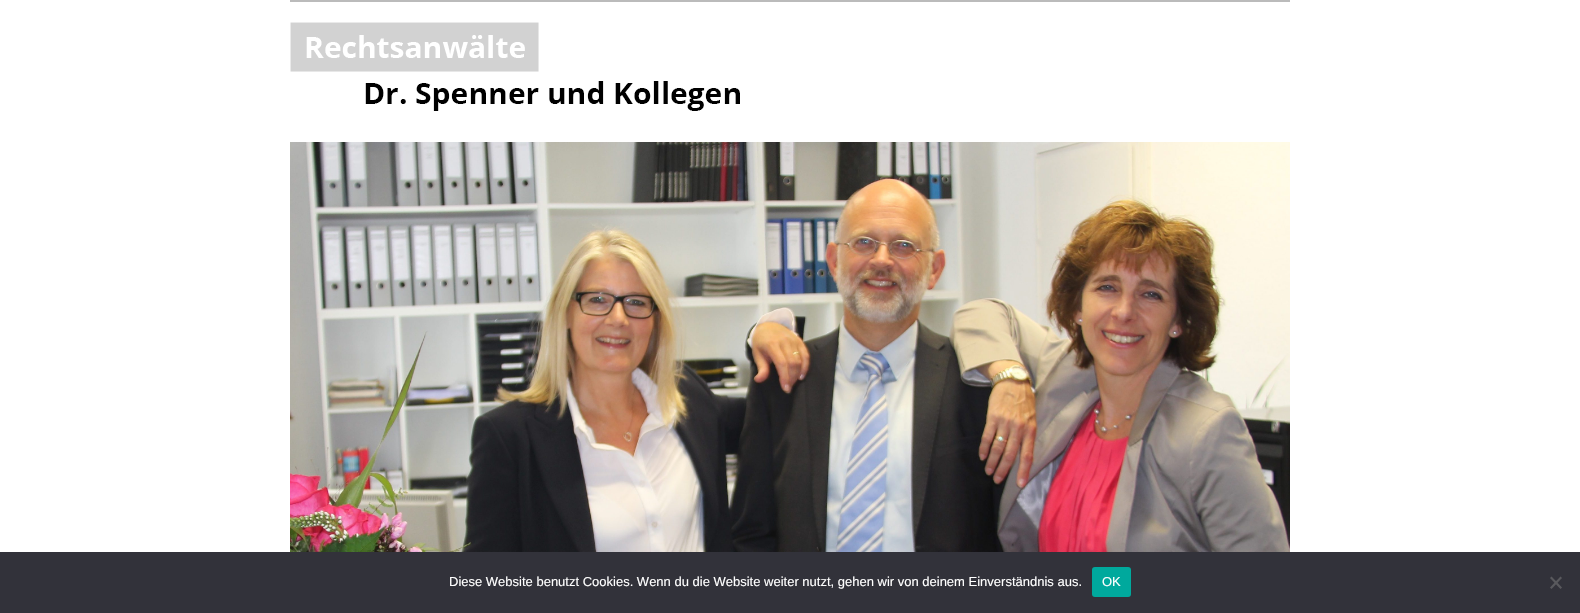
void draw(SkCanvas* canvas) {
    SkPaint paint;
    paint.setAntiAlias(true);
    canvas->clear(0xFFFFFFFF);
    paint.setColor(0xFFBBBBBB);
    canvas->drawRect(SkRect::MakeXYWH(290, 0, 1000, 2), paint);
    canvas->drawImageRect(SkImages::DeferredFromEncodedData(SkData::MakeFromFileName("img1.png")), SkRect::MakeXYWH(290, 22, 450, 89), SkSamplingOptions());
    canvas->drawImageRect(SkImages::DeferredFromEncodedData(SkData::MakeFromFileName("img2.png")), SkRect::MakeXYWH(290, 142, 1000, 410), SkSamplingOptions());
    paint.setColor(0xFF32323A);
    canvas->drawRect(SkRect::MakeXYWH(0, 552, 1580, 61), paint);
    SkFont font1(fontMgr->matchFamilyStyle("Liberation Sans", SkFontStyle::Normal()), 13);
    font1.setSubpixel(true);
    paint.setColor(0xFFFFFFFF);
    canvas->drawString("Diese Website benutzt Cookies. Wenn du die Website weiter nutzt, gehen wir von deinem Einverständnis aus.", 449, 586, font1, paint);
    paint.setColor(0xFF00A99D);
    canvas->drawRoundRect(SkRect::MakeXYWH(1092, 567, 39, 30), 3, 3, paint);
    paint.setColor(0xFFFFFFFF);
    canvas->drawString("OK", 1102, 586, font1, paint);
    paint.setColor(0xFF59595D);
    canvas->drawPath(SkPathBuilder().moveTo(1560.5f, 576.5f).lineTo(1562, 578).lineTo(1551.5f, 589).lineTo(1550, 587.5f).close().detach(), paint);
    canvas->drawPath(SkPathBuilder().moveTo(1550, 578).lineTo(1551.5f, 576.5f).lineTo(1562, 587.5f).lineTo(1560.5f, 589).close().detach(), paint);
}
